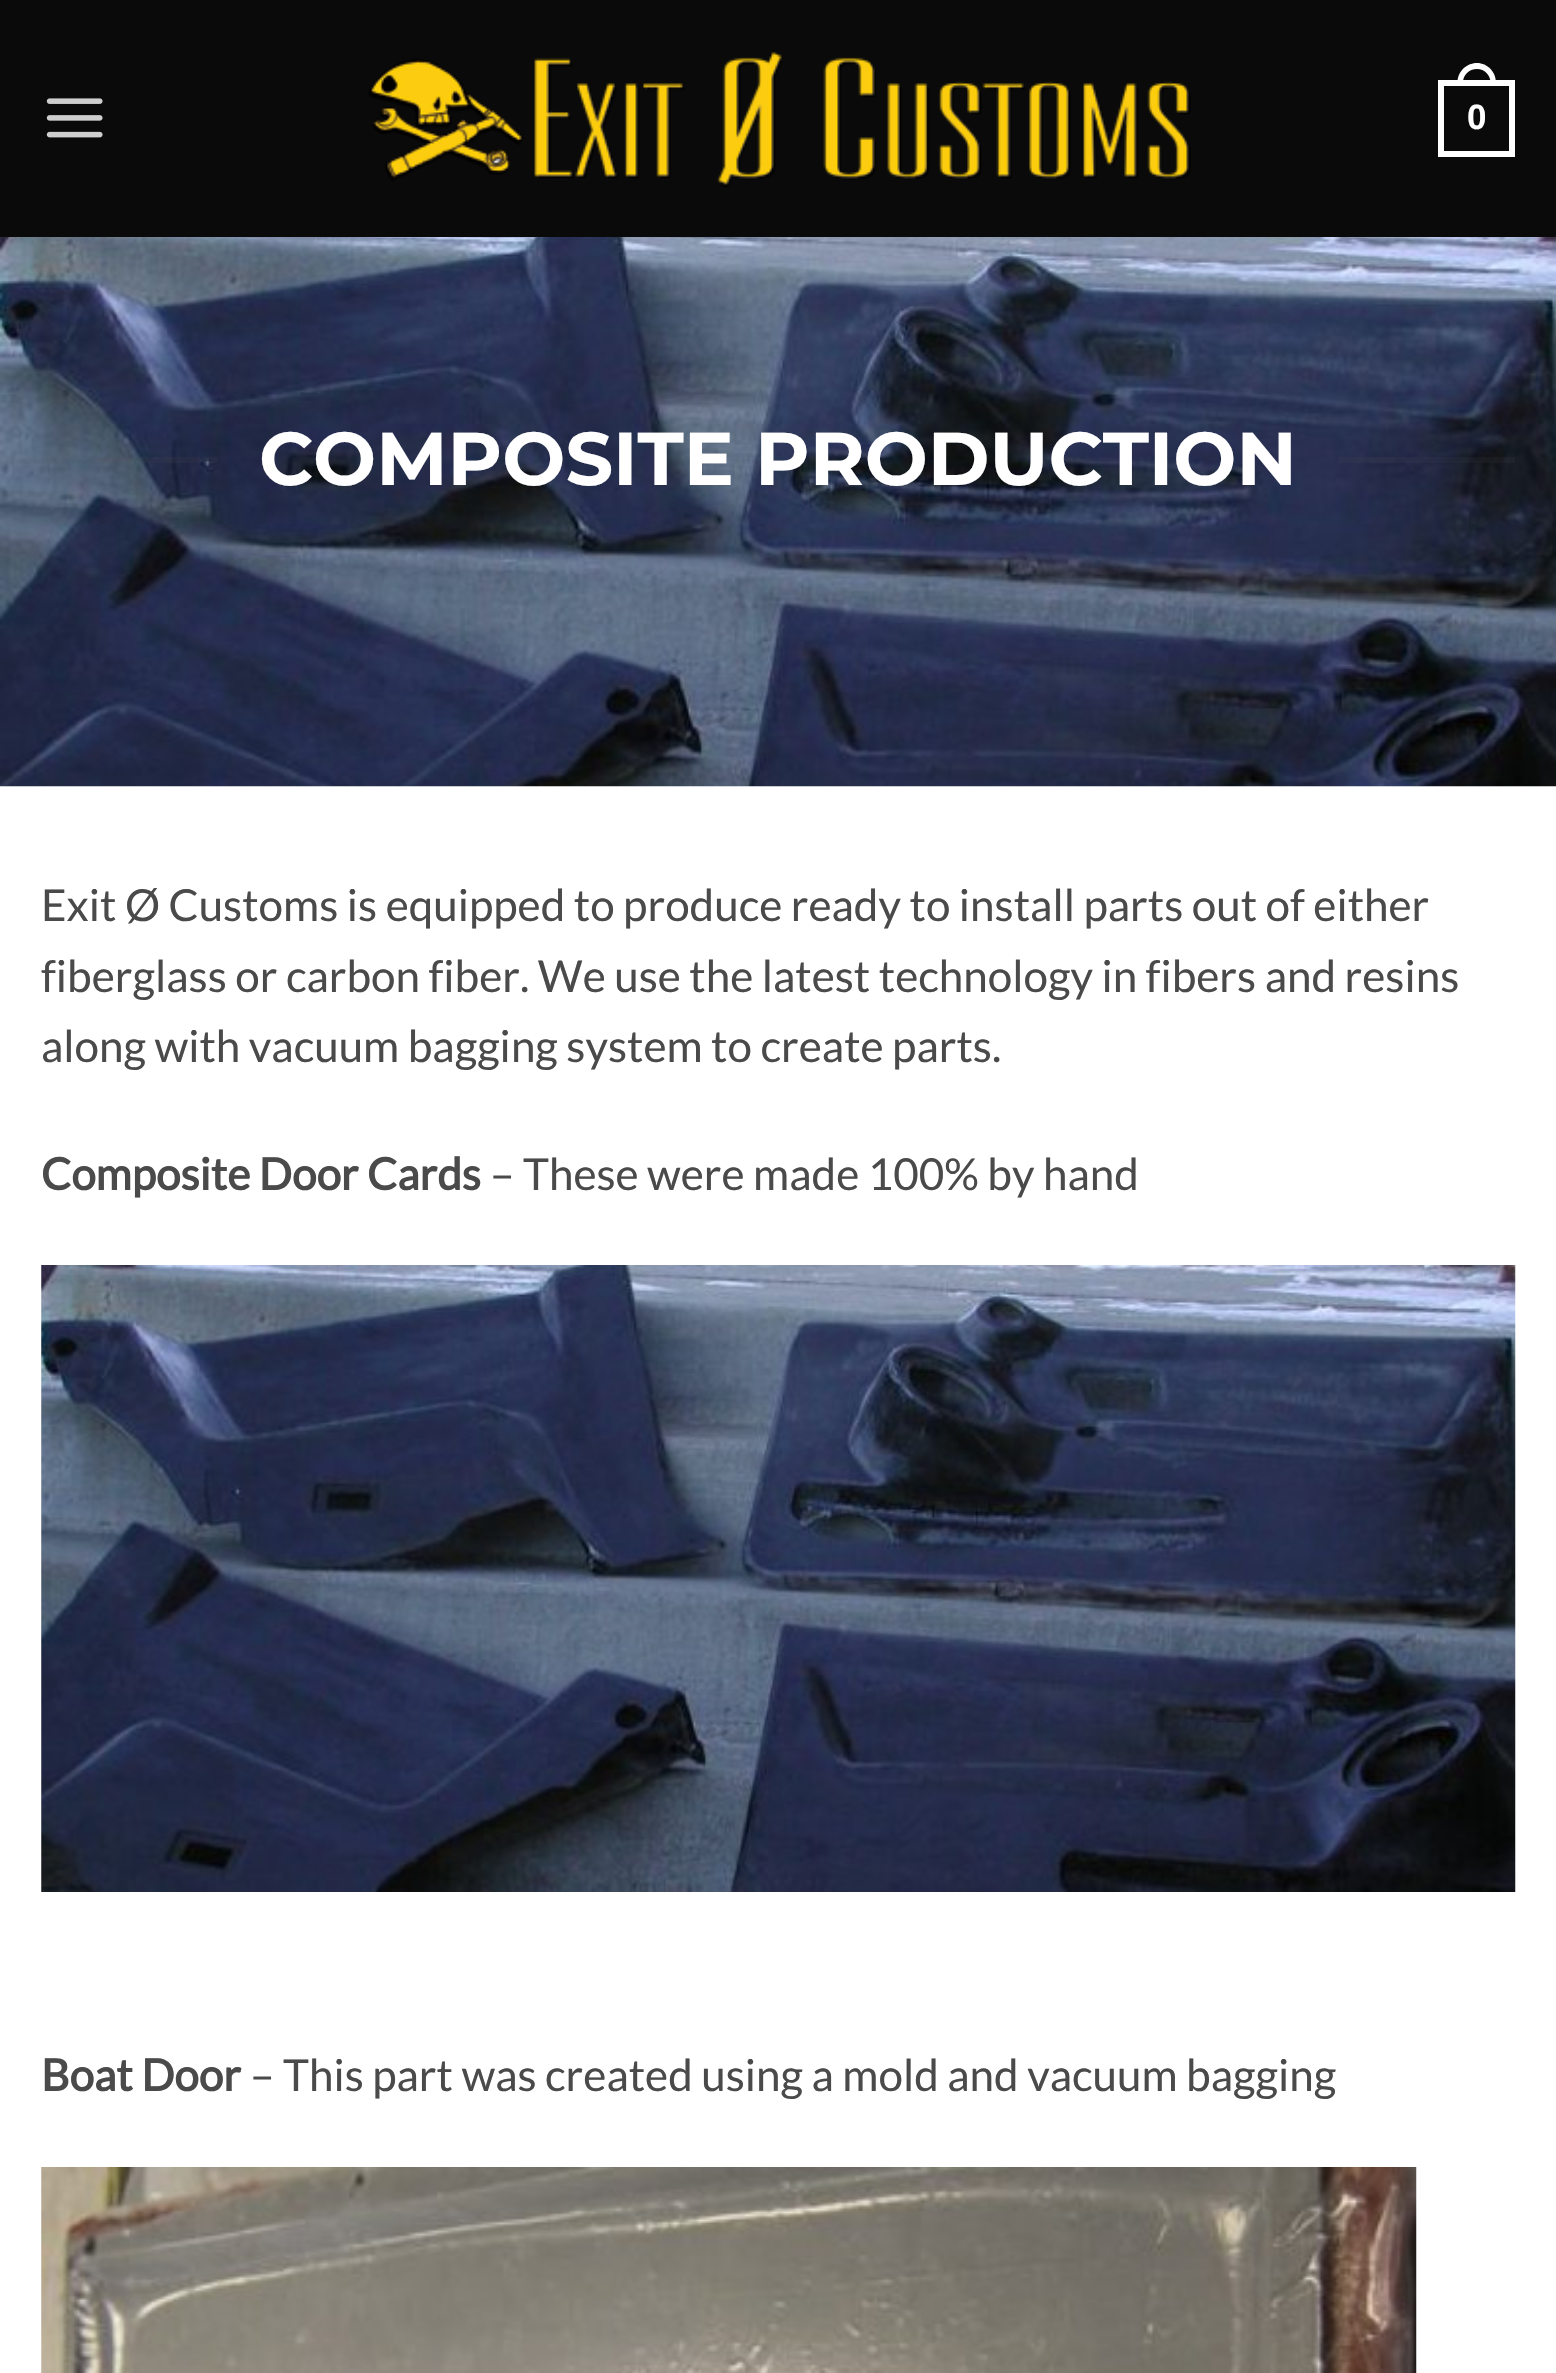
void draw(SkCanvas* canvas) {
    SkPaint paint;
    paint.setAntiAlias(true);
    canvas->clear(0xFFFFFFFF);
    paint.setColor(0xFF0A0A0A);
    canvas->drawRect(SkRect::MakeXYWH(0, 0, 1556, 237), paint);
    canvas->drawImageRect(SkImages::DeferredFromEncodedData(SkData::MakeFromFileName("img1.png")), SkRect::MakeXYWH(46, 98, 57, 40), SkSamplingOptions());
    canvas->drawImageRect(SkImages::DeferredFromEncodedData(SkData::MakeFromFileName("img2.png")), SkRect::MakeXYWH(368, 52, 823, 136), SkSamplingOptions());
    paint.setStyle(SkPaint::kStroke_Style);
    paint.setStrokeWidth(6);
    paint.setColor(0xFFFFFFFF);
    canvas->drawRect(SkRect::MakeXYWH(1441, 83, 71, 71), paint);
    paint.setStyle(SkPaint::kFill_Style);
    canvas->drawPath(SkPathBuilder(SkPathFillType::kEvenOdd).moveTo(1477, 63).cubicTo(1487.5f, 63, 1496, 72, 1496, 82.5f).lineTo(1496, 85).lineTo(1457.5f, 85).lineTo(1457.5f, 82.5f).cubicTo(1457.5f, 72, 1466, 63, 1477, 63).close().moveTo(1477, 69).cubicTo(1484.5f, 69, 1490.5f, 75, 1490.5f, 82.5f).lineTo(1490.5f, 85).lineTo(1463, 85).lineTo(1463, 82.5f).cubicTo(1463, 75, 1469, 69, 1477, 69).close().detach(), paint);
    SkFont font1(fontMgr->matchFamilyStyle("Liberation Sans", SkFontStyle::Bold()), 35);
    font1.setSubpixel(true);
    canvas->drawString("0", 1467, 129, font1, paint);
    canvas->drawImageRect(SkImages::DeferredFromEncodedData(SkData::MakeFromFileName("img3.png")), SkRect::MakeXYWH(0, 237, 1556, 550), SkSamplingOptions());
    paint.setColor(0x1A555555);
    canvas->drawRect(SkRect::MakeXYWH(41, 457, 176, 6), paint);
    SkFont font2(fontMgr->matchFamilyStyle("Montserrat", SkFontStyle::Bold()), 74.75f);
    font2.setSubpixel(true);
    paint.setColor(0xFFFFFFFF);
    canvas->drawString("COMPOSITE PRODUCTION", 259, 485, font2, paint);
    paint.setColor(0x1A555555);
    canvas->drawRect(SkRect::MakeXYWH(1339, 457, 176, 6), paint);
    SkFont font3(fontMgr->matchFamilyStyle("Lato", SkFontStyle::Normal()), 44);
    font3.setSubpixel(true);
    paint.setColor(0xFF4A4A4A);
    canvas->drawString("Exit Ø Customs is equipped to produce ready to install parts out of either", 41, 921, font3, paint);
    canvas->drawString("fiberglass or carbon fiber. We use the latest technology in fibers and resins", 41, 992, font3, paint);
    canvas->drawString("along with vacuum bagging system to create parts.", 41, 1062, font3, paint);
    SkFont font4(fontMgr->matchFamilyStyle("Lato", SkFontStyle::Bold()), 44);
    font4.setSubpixel(true);
    canvas->drawString("Composite Door Cards", 41, 1190, font4, paint);
    canvas->drawString("– These were made 100% by hand", 490, 1190, font3, paint);
    canvas->drawImageRect(SkImages::DeferredFromEncodedData(SkData::MakeFromFileName("img4.png")), SkRect::MakeXYWH(41, 1265, 1475, 627), SkSamplingOptions());
    canvas->drawString("Boat Door", 41, 2091, font4, paint);
    canvas->drawString("– This part was created using a mold and vacuum bagging", 250, 2091, font3, paint);
    canvas->drawImageRect(SkImages::DeferredFromEncodedData(SkData::MakeFromFileName("img5.png")), SkRect::MakeXYWH(41, 2167, 1376, 206), SkSamplingOptions());
}
